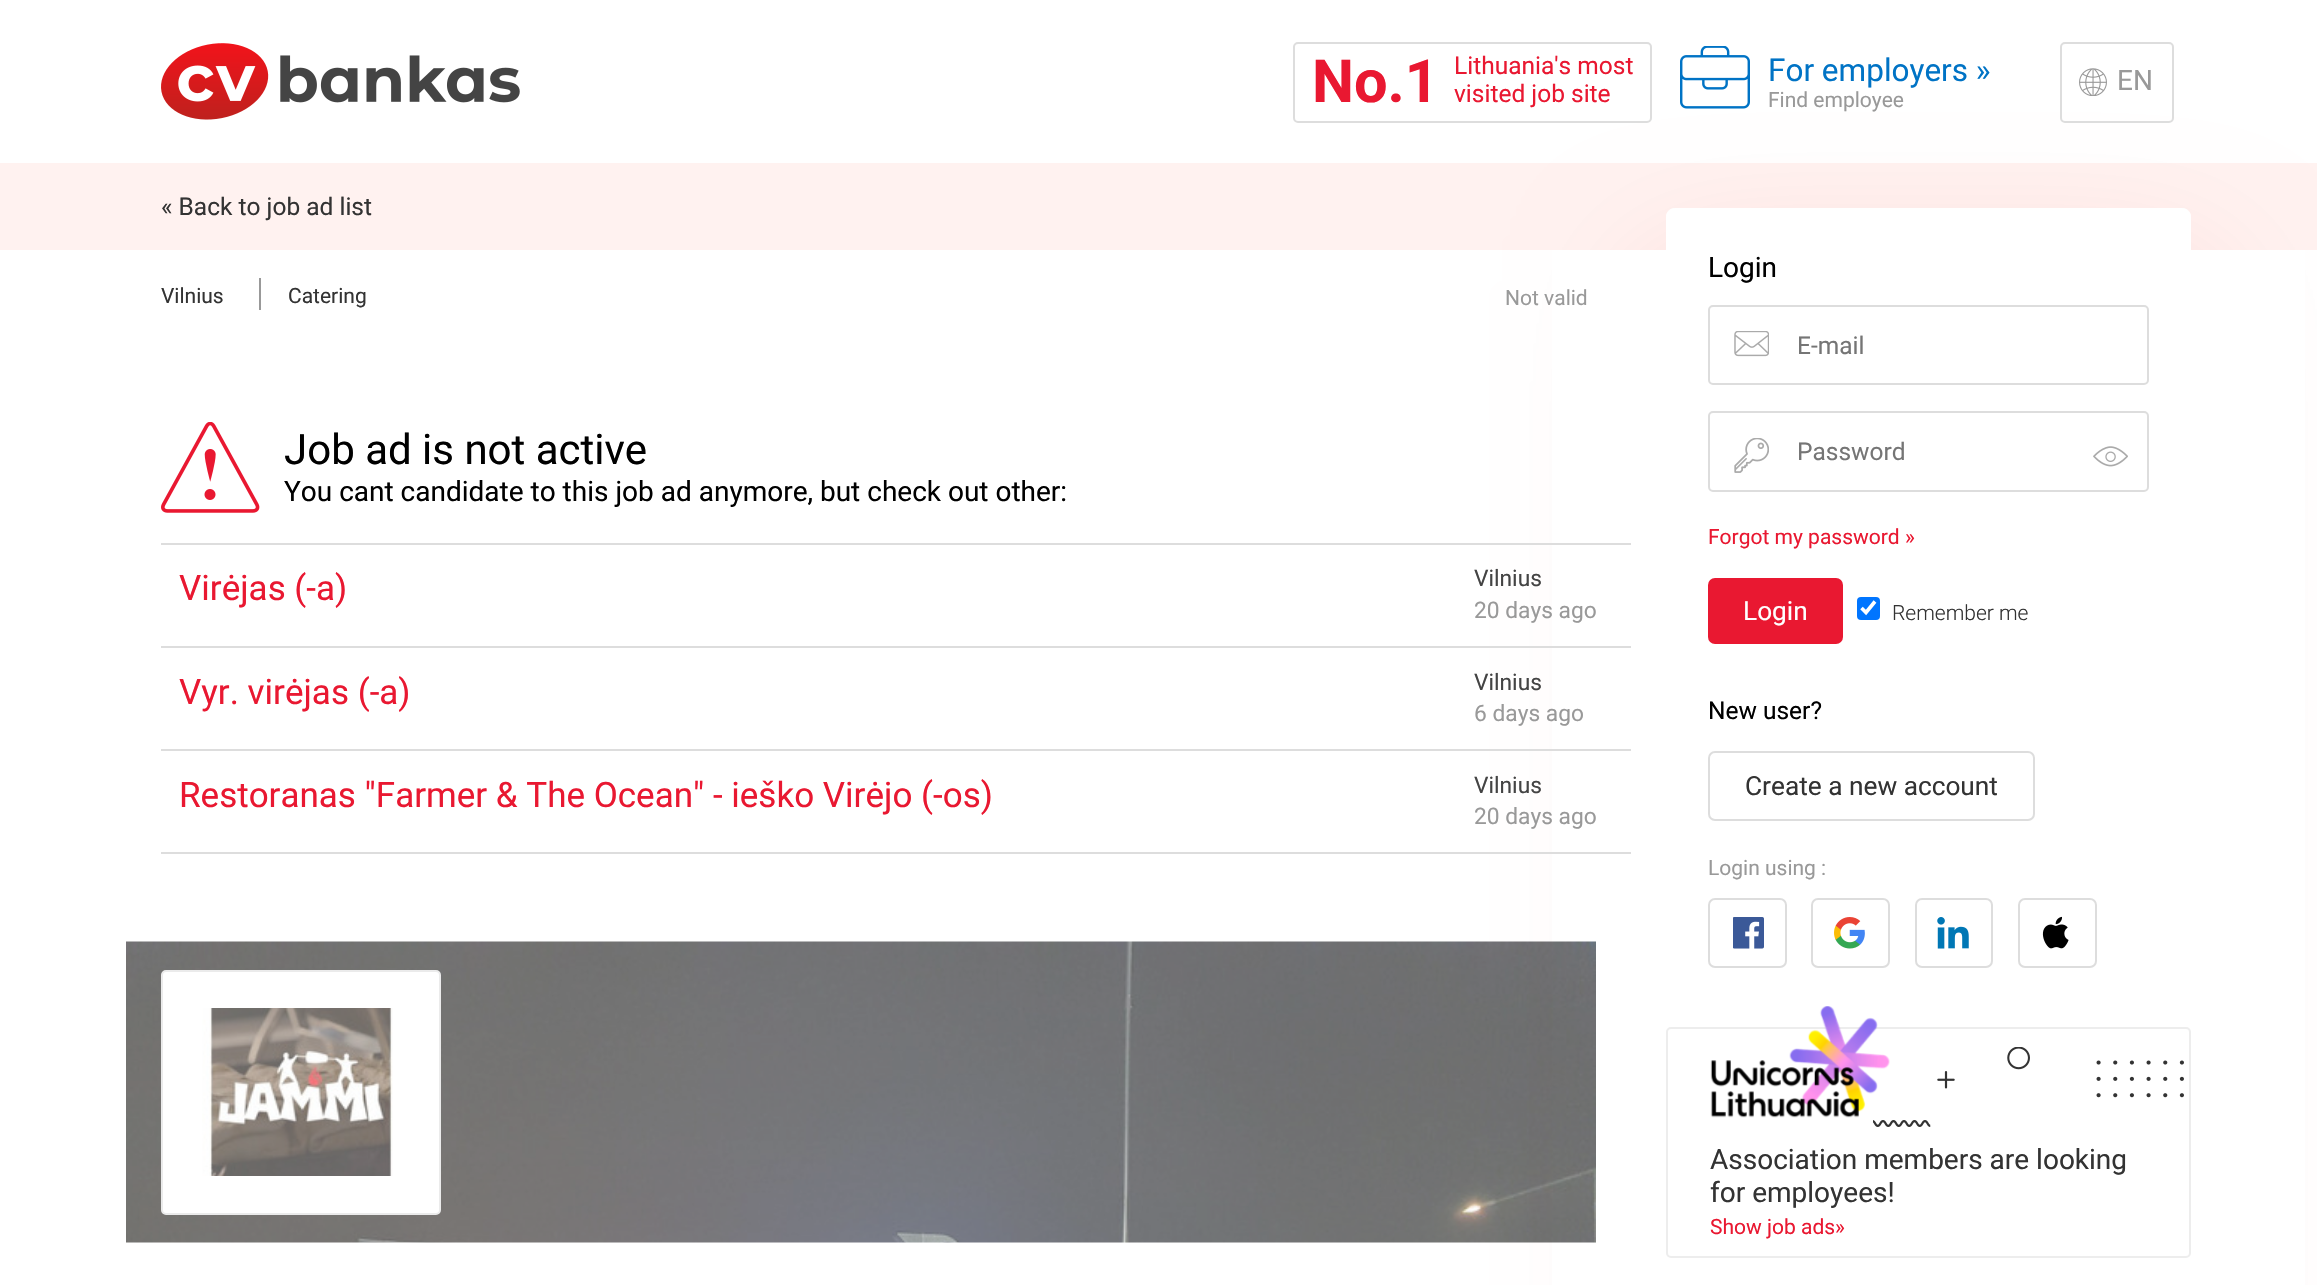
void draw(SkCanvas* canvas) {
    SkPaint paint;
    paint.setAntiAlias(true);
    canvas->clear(0xFFFFFFFF);
    canvas->drawImageRect(SkImages::DeferredFromEncodedData(SkData::MakeFromFileName("img1.png")), SkRect::MakeXYWH(161, 43, 359, 77), SkSamplingOptions());
    paint.setColor(0xFFFFF2F0);
    canvas->drawRect(SkRect::MakeXYWH(0, 163, 1666, 87), paint);
    canvas->drawRect(SkRect::MakeXYWH(1666, 163, 525, 54), paint);
    canvas->drawRect(SkRect::MakeXYWH(2191, 163, 126, 87), paint);
    paint.setColor(0x26E40000);
    paint.setMaskFilter(SkMaskFilter::MakeBlur(kNormal_SkBlurStyle, 70));
    canvas->drawRoundRect(SkRect::MakeXYWH(1657, 280, 543, 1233), 18, 18, paint);
    paint.setMaskFilter(nullptr);
    paint.setStyle(SkPaint::kStroke_Style);
    paint.setStrokeWidth(2);
    paint.setColor(0xFFDDDDDD);
    canvas->drawRoundRect(SkRect::MakeXYWH(1294, 43, 357, 79), 4, 4, paint);
    SkFont font1(fontMgr->matchFamilyStyle("Roboto", SkFontStyle::Bold()), 59.5f);
    font1.setSubpixel(true);
    paint.setStyle(SkPaint::kFill_Style);
    paint.setColor(0xFFE91831);
    canvas->drawString("No.1", 1312, 102, font1, paint);
    SkFont font2(fontMgr->matchFamilyStyle("Roboto", SkFontStyle::Normal()), 24.5f);
    font2.setSubpixel(true);
    canvas->drawString("Lithuania's most", 1454, 74, font2, paint);
    canvas->drawString("visited job site", 1454, 102, font2, paint);
    canvas->drawImageRect(SkImages::DeferredFromEncodedData(SkData::MakeFromFileName("img2.png")), SkRect::MakeXYWH(1680, 46, 70, 63), SkSamplingOptions());
    SkFont font3(fontMgr->matchFamilyStyle("Roboto", SkFontStyle::Normal()), 31.5f);
    font3.setSubpixel(true);
    paint.setColor(0xFF0073C5);
    canvas->drawString("For employers »", 1768, 81, font3, paint);
    SkFont font4(fontMgr->matchFamilyStyle("Roboto", SkFontStyle::Normal()), 21);
    font4.setSubpixel(true);
    paint.setColor(0xFF999999);
    canvas->drawString("Find employee", 1768, 107, font4, paint);
    canvas->drawImageRect(SkImages::DeferredFromEncodedData(SkData::MakeFromFileName("img3.png")), SkRect::MakeXYWH(2079, 68, 28, 28), SkSamplingOptions());
    paint.setStyle(SkPaint::kStroke_Style);
    paint.setColor(0xFFDDDDDD);
    canvas->drawRoundRect(SkRect::MakeXYWH(2061, 43, 112, 79), 4, 4, paint);
    SkFont font5(fontMgr->matchFamilyStyle("Roboto", SkFontStyle::Normal()), 28);
    font5.setSubpixel(true);
    paint.setStyle(SkPaint::kFill_Style);
    paint.setColor(0xFF999999);
    canvas->drawString("EN", 2117, 90, font5, paint);
    paint.setColor(0xFF333333);
    canvas->drawString("« Back to job ad list", 161, 215, font2, paint);
    paint.setColor(0xFFFFFFFF);
    canvas->drawRect(SkRect::MakeXYWH(1552, 250, 114, 1035), paint);
    paint.setColor(0xFF333333);
    canvas->drawString("Vilnius", 161, 303, font4, paint);
    paint.setColor(0xFF999999);
    canvas->drawRect(SkRect::MakeXYWH(259, 278, 2, 32), paint);
    paint.setColor(0xFF333333);
    canvas->drawString("Catering", 288, 303, font4, paint);
    paint.setColor(0xFF999999);
    canvas->drawString("Not valid", 1505, 305, font4, paint);
    canvas->drawImageRect(SkImages::DeferredFromEncodedData(SkData::MakeFromFileName("img4.png")), SkRect::MakeXYWH(161, 422, 99, 91), SkSamplingOptions());
    SkFont font6(fontMgr->matchFamilyStyle("Roboto", SkFontStyle::Normal()), 42);
    font6.setSubpixel(true);
    paint.setColor(0xFF000000);
    canvas->drawString("Job ad is not active", 284, 464, font6, paint);
    canvas->drawString("You cant candidate to this job ad anymore, but check out other:", 284, 501, font5, paint);
    paint.setColor(0xFFDDDDDD);
    canvas->drawRect(SkRect::MakeXYWH(161, 543, 1470, 2), paint);
    SkFont font7(fontMgr->matchFamilyStyle("Roboto", SkFontStyle::Normal()), 35);
    font7.setSubpixel(true);
    paint.setColor(0xFFE91831);
    canvas->drawString("Virėjas (-a)", 179, 600, font7, paint);
    SkFont font8(fontMgr->matchFamilyStyle("Roboto", SkFontStyle::Normal()), 22.75f);
    font8.setSubpixel(true);
    paint.setColor(0xFF444444);
    canvas->drawString("Vilnius", 1474, 586, font8, paint);
    paint.setColor(0xFF999999);
    canvas->drawString("20 days ago", 1474, 618, font8, paint);
    paint.setColor(0xFFDDDDDD);
    canvas->drawRect(SkRect::MakeXYWH(161, 646, 1470, 2), paint);
    paint.setColor(0xFFE91831);
    canvas->drawString("Vyr. virėjas (-a)", 179, 704, font7, paint);
    paint.setColor(0xFF444444);
    canvas->drawString("Vilnius", 1474, 690, font8, paint);
    paint.setColor(0xFF999999);
    canvas->drawString("6 days ago", 1474, 721, font8, paint);
    paint.setColor(0xFFDDDDDD);
    canvas->drawRect(SkRect::MakeXYWH(161, 749, 1470, 2), paint);
    canvas->drawRect(SkRect::MakeXYWH(161, 852, 1470, 2), paint);
    paint.setColor(0xFFE91831);
    canvas->drawString("Restoranas \"Farmer & The Ocean\" - ieško Virėjo (-os)", 179, 807, font7, paint);
    paint.setColor(0xFF444444);
    canvas->drawString("Vilnius", 1474, 793, font8, paint);
    paint.setColor(0xFF999999);
    canvas->drawString("20 days ago", 1474, 824, font8, paint);
    canvas->drawImageRect(SkImages::DeferredFromEncodedData(SkData::MakeFromFileName("img5.png")), SkRect::MakeXYWH(126, 941, 1470, 302), SkSamplingOptions());
    paint.setColor(0xFFFFFFFF);
    canvas->drawRoundRect(SkRect::MakeXYWH(162, 971, 278, 243), 4, 4, paint);
    paint.setStyle(SkPaint::kStroke_Style);
    paint.setColor(0xFFEBEBEB);
    canvas->drawRoundRect(SkRect::MakeXYWH(162, 971, 278, 243), 4, 4, paint);
    canvas->drawImageRect(SkImages::DeferredFromEncodedData(SkData::MakeFromFileName("img6.png")), SkRect::MakeXYWH(202, 1008, 191, 168), SkSamplingOptions());
    paint.setStyle(SkPaint::kFill_Style);
    paint.setColor(0xFFFFFFFF);
    canvas->drawPath(SkPathBuilder().moveTo(1675, 208).lineTo(2182, 208).cubicTo(2187, 208, 2191, 212, 2191, 217).lineTo(2191, 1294).lineTo(1666, 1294).lineTo(1666, 217).cubicTo(1666, 212, 1670, 208, 1675, 208).close().detach(), paint);
    canvas->drawPath(SkPathBuilder().moveTo(1675, 208).lineTo(2182, 208).cubicTo(2187, 208, 2191, 212, 2191, 217).lineTo(2191, 975).lineTo(1666, 975).lineTo(1666, 217).cubicTo(1666, 212, 1670, 208, 1675, 208).close().detach(), paint);
    paint.setColor(0xFF000000);
    canvas->drawString("Login", 1708, 277, font5, paint);
    paint.setStyle(SkPaint::kStroke_Style);
    paint.setColor(0xFFDDDDDD);
    canvas->drawRoundRect(SkRect::MakeXYWH(1709, 306, 439, 78), 4, 4, paint);
    canvas->drawImageRect(SkImages::DeferredFromEncodedData(SkData::MakeFromFileName("img7.png")), SkRect::MakeXYWH(1734, 331, 35, 26), SkSamplingOptions());
    paint.setStyle(SkPaint::kFill_Style);
    paint.setColor(0xFF757575);
    canvas->drawString("E-mail", 1797, 354, font2, paint);
    paint.setStyle(SkPaint::kStroke_Style);
    paint.setColor(0xFFDDDDDD);
    canvas->drawRoundRect(SkRect::MakeXYWH(1709, 412, 439, 79), 4, 4, paint);
    canvas->drawImageRect(SkImages::DeferredFromEncodedData(SkData::MakeFromFileName("img8.png")), SkRect::MakeXYWH(1734, 438, 35, 35), SkSamplingOptions());
    paint.setStyle(SkPaint::kFill_Style);
    paint.setColor(0xFF757575);
    canvas->drawString("Password", 1797, 460, font2, paint);
    canvas->drawImageRect(SkImages::DeferredFromEncodedData(SkData::MakeFromFileName("img9.png")), SkRect::MakeXYWH(2093, 446, 35, 21), SkSamplingOptions());
    paint.setColor(0xFFE91831);
    canvas->drawString("Forgot my password »", 1708, 544, font4, paint);
    canvas->drawRoundRect(SkRect::MakeXYWH(1708, 578, 135, 66), 7, 7, paint);
    SkFont font9(fontMgr->matchFamilyStyle("Roboto", SkFontStyle::Normal()), 26.25f);
    font9.setSubpixel(true);
    paint.setColor(0xFFFFFFFF);
    canvas->drawString("Login", 1743, 620, font9, paint);
    paint.setColor(0xFF0075FF);
    canvas->drawRoundRect(SkRect::MakeXYWH(1857, 597, 23, 23), 4, 4, paint);
    paint.setStyle(SkPaint::kStroke_Style);
    paint.setStrokeWidth(3.6f);
    paint.setColor(0xFFFFFFFF);
    canvas->drawPath(SkPathBuilder().moveTo(1861.5f, 608).lineTo(1866, 612.5f).lineTo(1875, 601.5f).detach(), paint);
    SkFont font10(fontMgr->matchFamilyStyle("Roboto", SkFontStyle(300, SkFontStyle::kNormal_Width, SkFontStyle::kUpright_Slant)), 21);
    font10.setSubpixel(true);
    paint.setStyle(SkPaint::kFill_Style);
    paint.setColor(0xFF333333);
    canvas->drawString("Remember me", 1892, 620, font10, paint);
    paint.setColor(0xFF000000);
    canvas->drawString("New user?", 1708, 719, font2, paint);
    paint.setStyle(SkPaint::kStroke_Style);
    paint.setStrokeWidth(2);
    paint.setColor(0xFFDDDDDD);
    canvas->drawRoundRect(SkRect::MakeXYWH(1709, 752, 325, 68), 6, 6, paint);
    paint.setStyle(SkPaint::kFill_Style);
    paint.setColor(0xFF333333);
    canvas->drawString("Create a new account", 1745, 795, font9, paint);
    paint.setColor(0xFF999999);
    canvas->drawString("Login using :", 1708, 875, font4, paint);
    canvas->drawImageRect(SkImages::DeferredFromEncodedData(SkData::MakeFromFileName("img10.png")), SkRect::MakeXYWH(1733, 917, 31, 32), SkSamplingOptions());
    paint.setStyle(SkPaint::kStroke_Style);
    paint.setColor(0xFFDDDDDD);
    canvas->drawRoundRect(SkRect::MakeXYWH(1709, 899, 77, 68), 6, 6, paint);
    canvas->drawImageRect(SkImages::DeferredFromEncodedData(SkData::MakeFromFileName("img11.png")), SkRect::MakeXYWH(1834, 917, 31, 32), SkSamplingOptions());
    canvas->drawRoundRect(SkRect::MakeXYWH(1812, 899, 77, 68), 6, 6, paint);
    canvas->drawImageRect(SkImages::DeferredFromEncodedData(SkData::MakeFromFileName("img12.png")), SkRect::MakeXYWH(1937, 917, 32, 32), SkSamplingOptions());
    canvas->drawRoundRect(SkRect::MakeXYWH(1916, 899, 76, 68), 6, 6, paint);
    canvas->drawImageRect(SkImages::DeferredFromEncodedData(SkData::MakeFromFileName("img13.png")), SkRect::MakeXYWH(2042, 916, 27, 33), SkSamplingOptions());
    canvas->drawRoundRect(SkRect::MakeXYWH(2019, 899, 77, 68), 6, 6, paint);
    paint.setColor(0xFFEDEDED);
    canvas->drawRoundRect(SkRect::MakeXYWH(1667, 1028, 523, 229), 4, 4, paint);
    canvas->drawImageRect(SkImages::DeferredFromEncodedData(SkData::MakeFromFileName("img14.png")), SkRect::MakeXYWH(1710, 1006, 180, 112), SkSamplingOptions());
    canvas->drawImageRect(SkImages::DeferredFromEncodedData(SkData::MakeFromFileName("img15.png")), SkRect::MakeXYWH(1873, 1047, 311, 80), SkSamplingOptions());
    paint.setStyle(SkPaint::kFill_Style);
    paint.setColor(0xFF333333);
    canvas->drawString("Association members are looking", 1710, 1169, font5, paint);
    canvas->drawString("for employees!", 1710, 1202, font5, paint);
    paint.setColor(0xFFE91831);
    canvas->drawString("Show job ads»", 1710, 1234, font4, paint);
    paint.setColor(0xFFFFFFFF);
    canvas->drawRect(SkRect::MakeXYWH(2191, 250, 114, 1035), paint);
}
